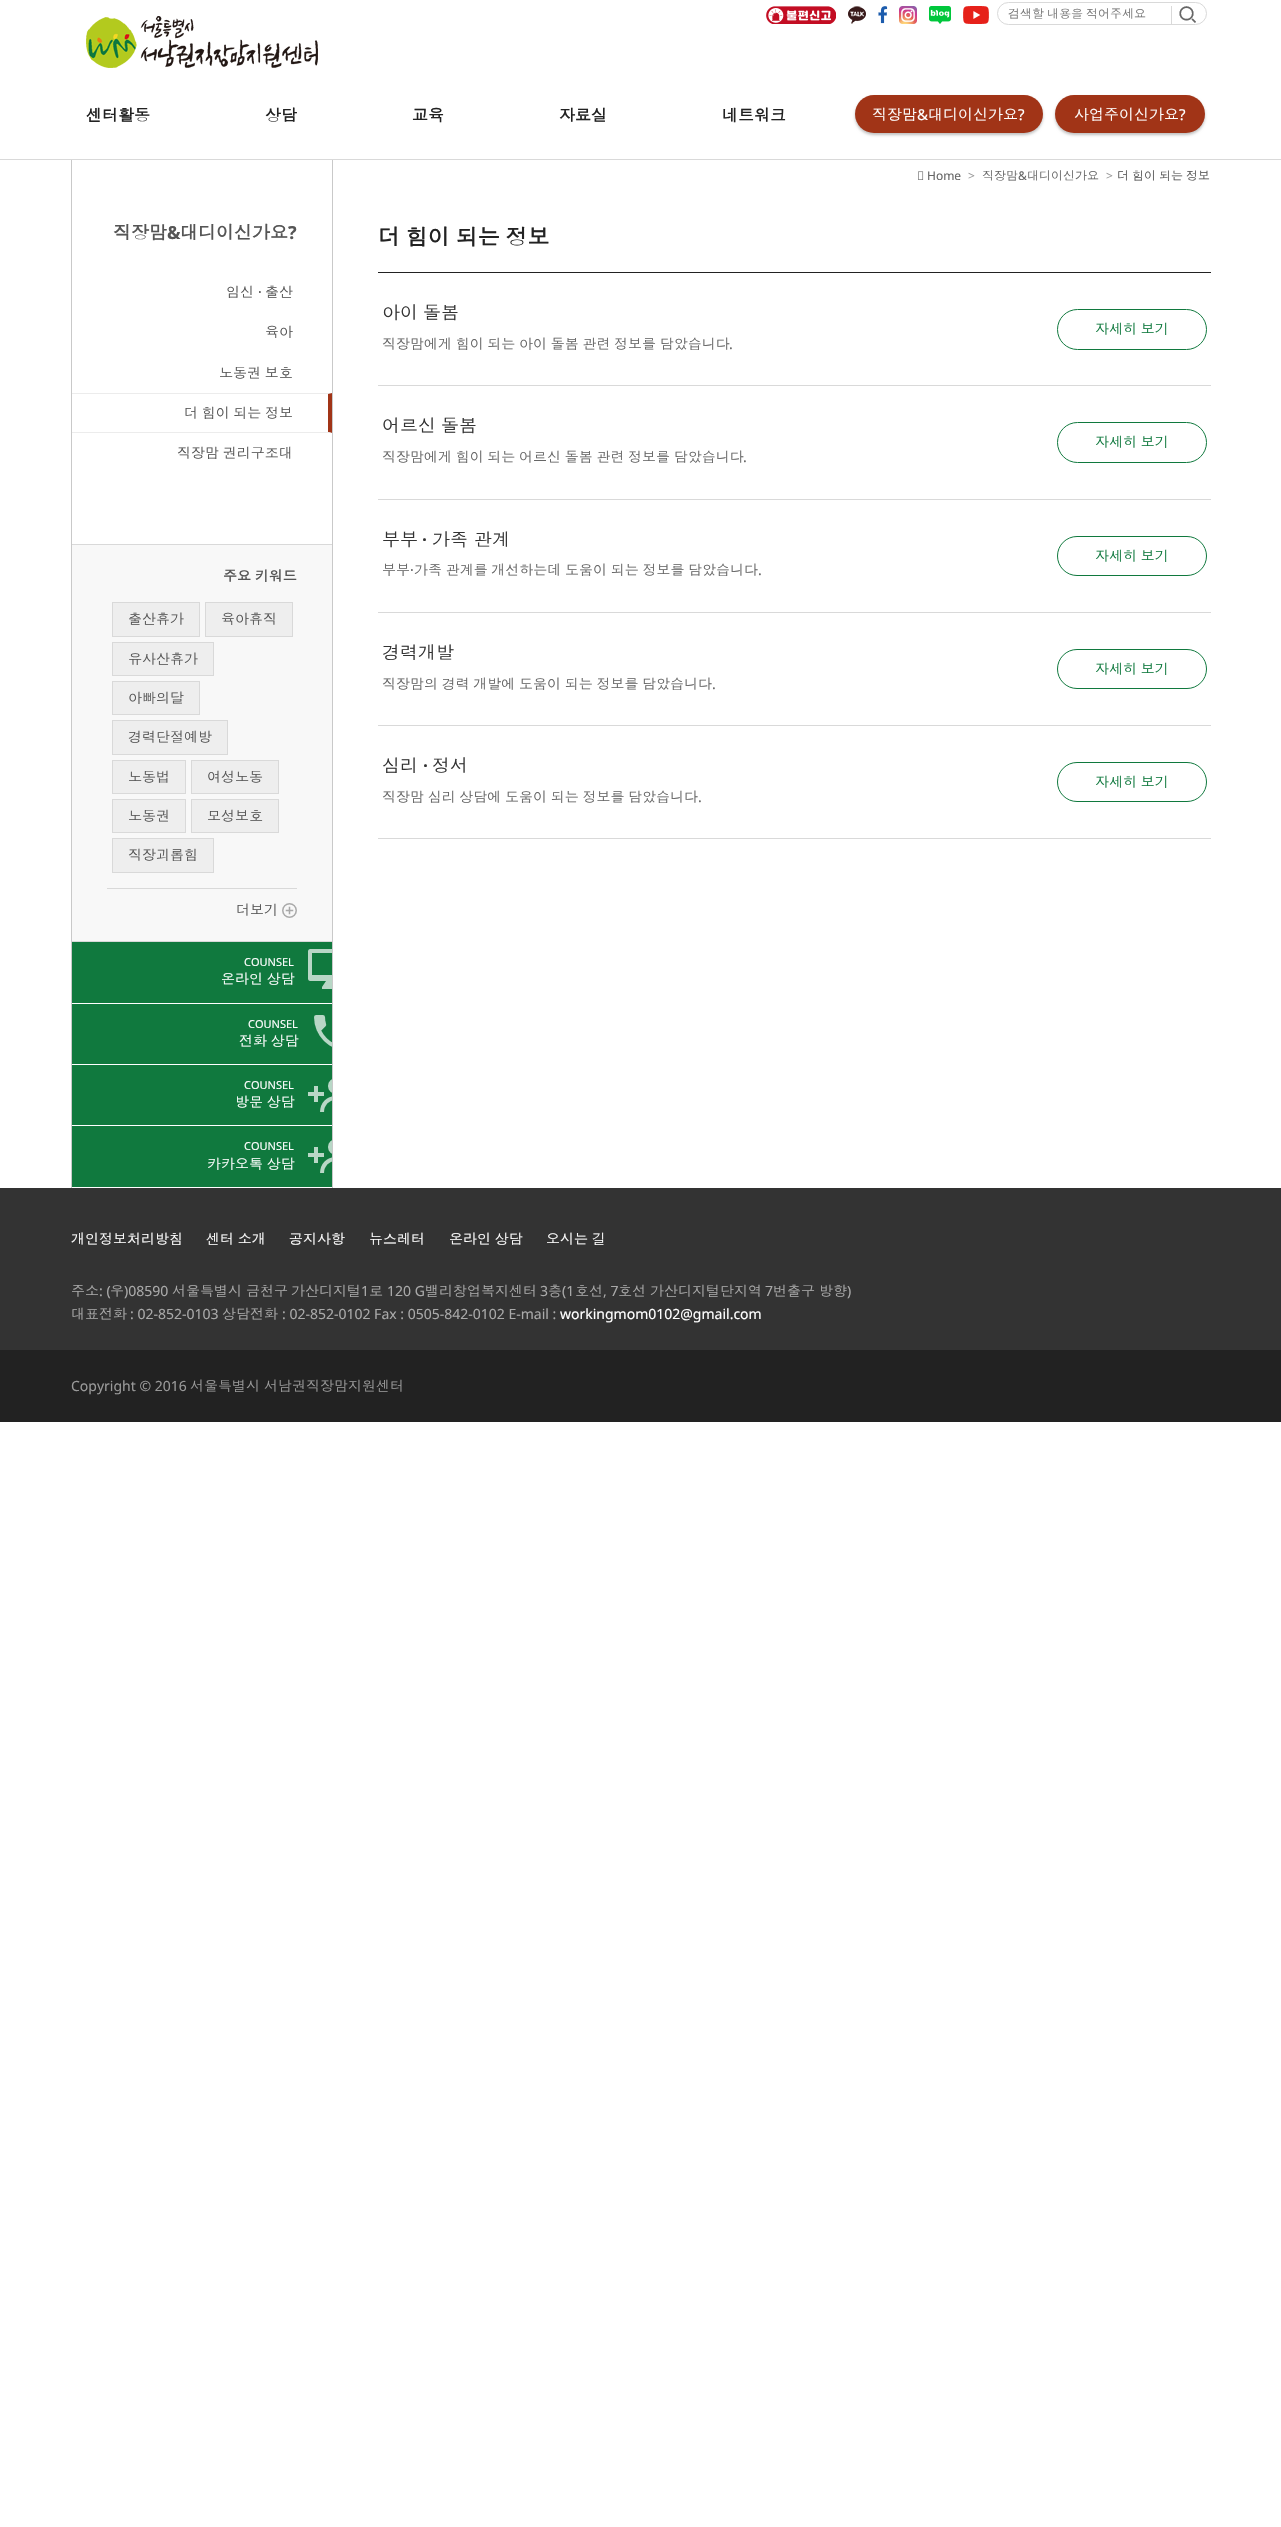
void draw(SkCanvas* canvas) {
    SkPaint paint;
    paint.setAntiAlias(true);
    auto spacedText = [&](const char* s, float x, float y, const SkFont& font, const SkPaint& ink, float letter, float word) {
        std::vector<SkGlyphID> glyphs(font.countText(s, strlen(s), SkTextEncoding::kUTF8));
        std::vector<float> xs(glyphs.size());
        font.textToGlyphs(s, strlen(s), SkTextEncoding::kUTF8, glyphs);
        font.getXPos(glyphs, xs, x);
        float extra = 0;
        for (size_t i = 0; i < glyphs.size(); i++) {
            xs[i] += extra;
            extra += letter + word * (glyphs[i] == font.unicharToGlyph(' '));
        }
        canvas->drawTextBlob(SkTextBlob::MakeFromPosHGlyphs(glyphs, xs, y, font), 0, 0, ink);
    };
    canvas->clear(0xFFFFFFFF);
    canvas->drawImageRect(SkImages::DeferredFromEncodedData(SkData::MakeFromFileName("img1.png")), SkRect::MakeXYWH(766, 6, 70, 18), SkSamplingOptions());
    canvas->drawImageRect(SkImages::DeferredFromEncodedData(SkData::MakeFromFileName("img2.png")), SkRect::MakeXYWH(848, 6, 18, 18), SkSamplingOptions());
    canvas->drawImageRect(SkImages::DeferredFromEncodedData(SkData::MakeFromFileName("img3.png")), SkRect::MakeXYWH(878, 6, 10, 18), SkSamplingOptions());
    canvas->drawImageRect(SkImages::DeferredFromEncodedData(SkData::MakeFromFileName("img4.png")), SkRect::MakeXYWH(899, 6, 18, 18), SkSamplingOptions());
    canvas->drawImageRect(SkImages::DeferredFromEncodedData(SkData::MakeFromFileName("img5.png")), SkRect::MakeXYWH(929, 6, 22, 18), SkSamplingOptions());
    canvas->drawImageRect(SkImages::DeferredFromEncodedData(SkData::MakeFromFileName("img6.png")), SkRect::MakeXYWH(963, 6, 26, 18), SkSamplingOptions());
    paint.setStyle(SkPaint::kStroke_Style);
    paint.setStrokeWidth(1);
    paint.setColor(0xFFD9D9D9);
    canvas->drawRoundRect(SkRect::MakeXYWH(997.5f, 2.5f, 209, 22), 11, 11, paint);
    SkFont font1(fontMgr->matchFamilyStyle("Dotum", SkFontStyle::Normal()), 12);
    font1.setSubpixel(true);
    paint.setStyle(SkPaint::kFill_Style);
    paint.setColor(0xFF757575);
    spacedText("검색할 내용을 적어주세요", 1008, 18, font1, paint, 0, -1);
    paint.setColor(0xFFD9D9D9);
    canvas->drawRect(SkRect::MakeXYWH(1171, 6, 1, 19), paint);
    canvas->drawImageRect(SkImages::DeferredFromEncodedData(SkData::MakeFromFileName("img7.png")), SkRect::MakeXYWH(1179, 6, 17, 17), SkSamplingOptions());
    canvas->drawImageRect(SkImages::DeferredFromEncodedData(SkData::MakeFromFileName("img8.png")), SkRect::MakeXYWH(86, 16, 232, 52), SkSamplingOptions());
    paint.setColor(0xFFC9C9C9);
    canvas->drawRect(SkRect::MakeXYWH(332, 158, 1, 1030), paint);
    canvas->drawRect(SkRect::MakeXYWH(71, 158, 1, 1030), paint);
    paint.setColor(0xFFFFFFFF);
    canvas->drawRect(SkRect::MakeXYWH(71, 158, 262, 1), paint);
    paint.setColor(0xFFD9D9D9);
    canvas->drawRect(SkRect::MakeXYWH(0, 159, 1281, 1), paint);
    SkFont font2(fontMgr->matchFamilyStyle("Dotum", SkFontStyle::Bold()), 16);
    font2.setSubpixel(true);
    paint.setColor(0xFF222222);
    canvas->drawString("센터활동", 86, 121, font2, paint);
    canvas->drawString("상담", 265, 121, font2, paint);
    canvas->drawString("교육", 412, 121, font2, paint);
    canvas->drawString("자료실", 559, 121, font2, paint);
    canvas->drawString("네트워크", 722, 121, font2, paint);
    paint.setColor(0x40000000);
    paint.setMaskFilter(SkMaskFilter::MakeBlur(kNormal_SkBlurStyle, 1.5f));
    canvas->drawRoundRect(SkRect::MakeXYWH(855, 97, 188, 38), 19, 19, paint);
    paint.setMaskFilter(nullptr);
    paint.setColor(0xFFA13417);
    canvas->drawRoundRect(SkRect::MakeXYWH(855, 95, 188, 38), 19, 19, paint);
    SkFont font3(fontMgr->matchFamilyStyle("Dotum", SkFontStyle::Normal()), 15);
    font3.setSubpixel(true);
    paint.setColor(0xFFFFFFFF);
    canvas->drawString("직장맘", 872, 120, font3, paint);
    SkFont font4(fontMgr->matchFamilyStyle("Noto Sans", SkFontStyle::Normal()), 15);
    font4.setSubpixel(true);
    canvas->drawString("&", 917, 120, font4, paint);
    canvas->drawString("대디이신가요", 928, 120, font3, paint);
    canvas->drawString("?", 1018, 120, font4, paint);
    paint.setColor(0x40000000);
    paint.setMaskFilter(SkMaskFilter::MakeBlur(kNormal_SkBlurStyle, 1.5f));
    canvas->drawRoundRect(SkRect::MakeXYWH(1055, 97, 150, 38), 19, 19, paint);
    paint.setMaskFilter(nullptr);
    paint.setColor(0xFFA13417);
    canvas->drawRoundRect(SkRect::MakeXYWH(1055, 95, 150, 38), 19, 19, paint);
    paint.setColor(0xFFFFFFFF);
    canvas->drawString("사업주이신가요", 1074, 120, font3, paint);
    canvas->drawString("?", 1179, 120, font4, paint);
    SkFont font5(fontMgr->matchFamilyStyle("Dotum", SkFontStyle::Bold()), 18);
    font5.setSubpixel(true);
    paint.setColor(0xFF555555);
    canvas->drawString("직장맘", 113, 239, font5, paint);
    SkFont font6(fontMgr->matchFamilyStyle("Noto Sans", SkFontStyle::Bold()), 18);
    font6.setSubpixel(true);
    canvas->drawString("&", 167, 239, font6, paint);
    canvas->drawString("대디이신가요", 180, 239, font5, paint);
    canvas->drawString("?", 288, 239, font6, paint);
    SkFont font7(fontMgr->matchFamilyStyle("Dotum", SkFontStyle::Normal()), 14);
    font7.setSubpixel(true);
    canvas->drawString("임신", 226, 297, font7, paint);
    SkFont font8(fontMgr->matchFamilyStyle("Noto Sans", SkFontStyle::Normal()), 14);
    font8.setSubpixel(true);
    canvas->drawString("·", 258, 297, font8, paint);
    canvas->drawString("출산", 265, 297, font7, paint);
    canvas->drawString("육아", 265, 337, font7, paint);
    spacedText("노동권 보호", 219, 378, font7, paint, 0, -1);
    paint.setColor(0xFFECECEC);
    canvas->drawPath(SkPathBuilder().moveTo(72, 393).lineTo(332, 393).lineTo(328, 394).lineTo(72, 394).close().detach(), paint);
    paint.setColor(0xFFA13417);
    canvas->drawPath(SkPathBuilder().moveTo(332, 393).lineTo(332, 433).lineTo(328, 432).lineTo(328, 394).close().detach(), paint);
    paint.setColor(0xFFECECEC);
    canvas->drawPath(SkPathBuilder().moveTo(332, 433).lineTo(72, 433).lineTo(72, 432).lineTo(328, 432).close().detach(), paint);
    paint.setColor(0xFF555555);
    spacedText("더 힘이 되는 정보", 184, 418, font7, paint, 0, -1);
    spacedText("직장맘 권리구조대", 177, 458, font7, paint, 0, -1);
    paint.setColor(0xFFF8F8F8);
    canvas->drawRect(SkRect::MakeXYWH(72, 545, 260, 396), paint);
    paint.setColor(0xFFD9D9D9);
    canvas->drawRect(SkRect::MakeXYWH(72, 544, 260, 1), paint);
    canvas->drawRect(SkRect::MakeXYWH(72, 941, 260, 1), paint);
    SkFont font9(fontMgr->matchFamilyStyle("Dotum", SkFontStyle::Bold()), 14);
    font9.setSubpixel(true);
    paint.setColor(0xFF555555);
    spacedText("주요 키워드", 223, 581, font9, paint, 0, -1);
    paint.setColor(0xFFEEEEEE);
    canvas->drawRect(SkRect::MakeXYWH(112.5f, 602.5f, 87, 34), paint);
    paint.setStyle(SkPaint::kStroke_Style);
    paint.setColor(0xFFD9D9D9);
    canvas->drawRect(SkRect::MakeXYWH(112.5f, 602.5f, 87, 34), paint);
    paint.setStyle(SkPaint::kFill_Style);
    paint.setColor(0xFF555555);
    canvas->drawString("출산휴가", 128, 624, font7, paint);
    paint.setColor(0xFFEEEEEE);
    canvas->drawRect(SkRect::MakeXYWH(205.5f, 602.5f, 87, 34), paint);
    paint.setStyle(SkPaint::kStroke_Style);
    paint.setColor(0xFFD9D9D9);
    canvas->drawRect(SkRect::MakeXYWH(205.5f, 602.5f, 87, 34), paint);
    paint.setStyle(SkPaint::kFill_Style);
    paint.setColor(0xFF555555);
    canvas->drawString("육아휴직", 221, 624, font7, paint);
    paint.setColor(0xFFEEEEEE);
    canvas->drawRect(SkRect::MakeXYWH(112.5f, 642.5f, 101, 33), paint);
    paint.setStyle(SkPaint::kStroke_Style);
    paint.setColor(0xFFD9D9D9);
    canvas->drawRect(SkRect::MakeXYWH(112.5f, 642.5f, 101, 33), paint);
    paint.setStyle(SkPaint::kFill_Style);
    paint.setColor(0xFF555555);
    canvas->drawString("유사산휴가", 128, 664, font7, paint);
    paint.setColor(0xFFEEEEEE);
    canvas->drawRect(SkRect::MakeXYWH(112.5f, 681.5f, 87, 33), paint);
    paint.setStyle(SkPaint::kStroke_Style);
    paint.setColor(0xFFD9D9D9);
    canvas->drawRect(SkRect::MakeXYWH(112.5f, 681.5f, 87, 33), paint);
    paint.setStyle(SkPaint::kFill_Style);
    paint.setColor(0xFF555555);
    canvas->drawString("아빠의달", 128, 703, font7, paint);
    paint.setColor(0xFFEEEEEE);
    canvas->drawRect(SkRect::MakeXYWH(112.5f, 720.5f, 115, 34), paint);
    paint.setStyle(SkPaint::kStroke_Style);
    paint.setColor(0xFFD9D9D9);
    canvas->drawRect(SkRect::MakeXYWH(112.5f, 720.5f, 115, 34), paint);
    paint.setStyle(SkPaint::kFill_Style);
    paint.setColor(0xFF555555);
    canvas->drawString("경력단절예방", 128, 742, font7, paint);
    paint.setColor(0xFFEEEEEE);
    canvas->drawRect(SkRect::MakeXYWH(112.5f, 760.5f, 73, 33), paint);
    paint.setStyle(SkPaint::kStroke_Style);
    paint.setColor(0xFFD9D9D9);
    canvas->drawRect(SkRect::MakeXYWH(112.5f, 760.5f, 73, 33), paint);
    paint.setStyle(SkPaint::kFill_Style);
    paint.setColor(0xFF555555);
    canvas->drawString("노동법", 128, 782, font7, paint);
    paint.setColor(0xFFEEEEEE);
    canvas->drawRect(SkRect::MakeXYWH(191.5f, 760.5f, 87, 33), paint);
    paint.setStyle(SkPaint::kStroke_Style);
    paint.setColor(0xFFD9D9D9);
    canvas->drawRect(SkRect::MakeXYWH(191.5f, 760.5f, 87, 33), paint);
    paint.setStyle(SkPaint::kFill_Style);
    paint.setColor(0xFF555555);
    canvas->drawString("여성노동", 207, 782, font7, paint);
    paint.setColor(0xFFEEEEEE);
    canvas->drawRect(SkRect::MakeXYWH(112.5f, 799.5f, 73, 33), paint);
    paint.setStyle(SkPaint::kStroke_Style);
    paint.setColor(0xFFD9D9D9);
    canvas->drawRect(SkRect::MakeXYWH(112.5f, 799.5f, 73, 33), paint);
    paint.setStyle(SkPaint::kFill_Style);
    paint.setColor(0xFF555555);
    canvas->drawString("노동권", 128, 821, font7, paint);
    paint.setColor(0xFFEEEEEE);
    canvas->drawRect(SkRect::MakeXYWH(191.5f, 799.5f, 87, 33), paint);
    paint.setStyle(SkPaint::kStroke_Style);
    paint.setColor(0xFFD9D9D9);
    canvas->drawRect(SkRect::MakeXYWH(191.5f, 799.5f, 87, 33), paint);
    paint.setStyle(SkPaint::kFill_Style);
    paint.setColor(0xFF555555);
    canvas->drawString("모성보호", 207, 821, font7, paint);
    paint.setColor(0xFFEEEEEE);
    canvas->drawRect(SkRect::MakeXYWH(112.5f, 838.5f, 101, 34), paint);
    paint.setStyle(SkPaint::kStroke_Style);
    paint.setColor(0xFFD9D9D9);
    canvas->drawRect(SkRect::MakeXYWH(112.5f, 838.5f, 101, 34), paint);
    paint.setStyle(SkPaint::kFill_Style);
    paint.setColor(0xFF555555);
    canvas->drawString("직장괴롭힘", 128, 860, font7, paint);
    paint.setColor(0xFFD9D9D9);
    canvas->drawRect(SkRect::MakeXYWH(107, 888, 190, 1), paint);
    paint.setColor(0xFF555555);
    canvas->drawString("더보기", 236, 915, font7, paint);
    canvas->drawImageRect(SkImages::DeferredFromEncodedData(SkData::MakeFromFileName("img9.png")), SkRect::MakeXYWH(282, 903, 15, 15), SkSamplingOptions());
    paint.setColor(0xFF10793E);
    canvas->drawRect(SkRect::MakeXYWH(72, 942, 260, 61), paint);
    SkFont font10(fontMgr->matchFamilyStyle("Noto Sans", SkFontStyle::Normal()), 11);
    font10.setSubpixel(true);
    paint.setColor(0xFFFFFFFF);
    canvas->drawString("COUNSEL", 244, 966, font10, paint);
    spacedText("온라인 상담", 221, 984, font7, paint, 0, -1);
    canvas->drawImageRect(SkImages::DeferredFromEncodedData(SkData::MakeFromFileName("img10.png")), SkRect::MakeXYWH(308, 949, 24, 40), SkSamplingOptions());
    paint.setColor(0xFF10793E);
    canvas->drawRect(SkRect::MakeXYWH(72, 1004, 260, 60), paint);
    paint.setColor(0xFFFFFFFF);
    canvas->drawString("COUNSEL", 248, 1028, font10, paint);
    spacedText("전화 상담", 239, 1046, font7, paint, 0, -1);
    canvas->drawImageRect(SkImages::DeferredFromEncodedData(SkData::MakeFromFileName("img11.png")), SkRect::MakeXYWH(314, 1015, 18, 32), SkSamplingOptions());
    paint.setColor(0xFF10793E);
    canvas->drawRect(SkRect::MakeXYWH(72, 1065, 260, 60), paint);
    paint.setColor(0xFFFFFFFF);
    canvas->drawString("COUNSEL", 244, 1089, font10, paint);
    spacedText("방문 상담", 235, 1107, font7, paint, 0, -1);
    canvas->drawImageRect(SkImages::DeferredFromEncodedData(SkData::MakeFromFileName("img12.png")), SkRect::MakeXYWH(308, 1079, 24, 33), SkSamplingOptions());
    paint.setColor(0xFF10793E);
    canvas->drawRect(SkRect::MakeXYWH(72, 1126, 260, 61), paint);
    paint.setColor(0xFFFFFFFF);
    canvas->drawString("COUNSEL", 244, 1150, font10, paint);
    spacedText("카카오톡 상담", 207, 1169, font7, paint, 0, -1);
    canvas->drawImageRect(SkImages::DeferredFromEncodedData(SkData::MakeFromFileName("img12.png")), SkRect::MakeXYWH(308, 1140, 24, 33), SkSamplingOptions());
    canvas->drawImageRect(SkImages::DeferredFromEncodedData(SkData::MakeFromFileName("img13.png")), SkRect::MakeXYWH(918, 171, 6, 9), SkSamplingOptions());
    SkFont font11(fontMgr->matchFamilyStyle("Noto Sans", SkFontStyle::Normal()), 12);
    font11.setSubpixel(true);
    paint.setColor(0xFF666666);
    canvas->drawString("Home", 927, 180, font11, paint);
    paint.setColor(0xFF999999);
    canvas->drawString(">", 968, 180, font11, paint);
    paint.setColor(0xFF666666);
    canvas->drawString("직장맘", 982, 180, font1, paint);
    canvas->drawString("&", 1018, 180, font11, paint);
    canvas->drawString("대디이신가요", 1027, 180, font1, paint);
    paint.setColor(0xFF999999);
    canvas->drawString(">", 1106, 180, font11, paint);
    paint.setColor(0xFF555555);
    spacedText("더 힘이 되는 정보", 1117, 180, font1, paint, 0, -1);
    SkFont font12(fontMgr->matchFamilyStyle("Dotum", SkFontStyle::Bold()), 22);
    font12.setSubpixel(true);
    paint.setColor(0xFF222222);
    spacedText("더 힘이 되는 정보", 378, 245, font12, paint, 0, -1.5f);
    canvas->drawRect(SkRect::MakeXYWH(378, 272, 833, 1), paint);
    paint.setColor(0xFFD9D9D9);
    canvas->drawRect(SkRect::MakeXYWH(378, 385, 833, 1), paint);
    SkFont font13(fontMgr->matchFamilyStyle("Dotum", SkFontStyle::Normal()), 18);
    font13.setSubpixel(true);
    paint.setColor(0xFF333333);
    spacedText("아이 돌봄", 382, 319, font13, paint, 0, -1);
    paint.setColor(0xFF666666);
    spacedText("직장맘에게 힘이 되는 아이 돌봄 관련 정보를 담았습니다", 382, 349, font7, paint, 0, -1);
    canvas->drawString(".", 729, 349, font8, paint);
    paint.setStyle(SkPaint::kStroke_Style);
    paint.setColor(0xFF10793E);
    canvas->drawRoundRect(SkRect::MakeXYWH(1057.5f, 309.5f, 149, 40), 20, 20, paint);
    paint.setStyle(SkPaint::kFill_Style);
    spacedText("자세히 보기", 1095, 334, font7, paint, 0, -1);
    paint.setColor(0xFFD9D9D9);
    canvas->drawRect(SkRect::MakeXYWH(378, 499, 833, 1), paint);
    paint.setColor(0xFF333333);
    spacedText("어르신 돌봄", 382, 432, font13, paint, 0, -1);
    paint.setColor(0xFF666666);
    spacedText("직장맘에게 힘이 되는 어르신 돌봄 관련 정보를 담았습니다", 382, 462, font7, paint, 0, -1);
    canvas->drawString(".", 743, 462, font8, paint);
    paint.setStyle(SkPaint::kStroke_Style);
    paint.setColor(0xFF10793E);
    canvas->drawRoundRect(SkRect::MakeXYWH(1057.5f, 422.5f, 149, 40), 20, 20, paint);
    paint.setStyle(SkPaint::kFill_Style);
    spacedText("자세히 보기", 1095, 447, font7, paint, 0, -1);
    paint.setColor(0xFFD9D9D9);
    canvas->drawRect(SkRect::MakeXYWH(378, 612, 833, 1), paint);
    paint.setColor(0xFF333333);
    canvas->drawString("부부", 382, 546, font13, paint);
    SkFont font14(fontMgr->matchFamilyStyle("Noto Sans", SkFontStyle(600, SkFontStyle::kNormal_Width, SkFontStyle::kUpright_Slant)), 18);
    font14.setSubpixel(true);
    canvas->drawString("·", 422, 546, font14, paint);
    canvas->drawString("가족 관계", 432, 546, font13, paint);
    paint.setColor(0xFF666666);
    canvas->drawString("부부", 382, 575, font7, paint);
    canvas->drawString("·", 410, 575, font8, paint);
    spacedText("가족 관계를 개선하는데 도움이 되는 정보를 담았습니다", 414, 575, font7, paint, 0, -1);
    canvas->drawString(".", 758, 575, font8, paint);
    paint.setStyle(SkPaint::kStroke_Style);
    paint.setColor(0xFF10793E);
    canvas->drawRoundRect(SkRect::MakeXYWH(1057.5f, 536.5f, 149, 39), 19.5f, 19.5f, paint);
    paint.setStyle(SkPaint::kFill_Style);
    spacedText("자세히 보기", 1095, 561, font7, paint, 0, -1);
    paint.setColor(0xFFD9D9D9);
    canvas->drawRect(SkRect::MakeXYWH(378, 725, 833, 1), paint);
    paint.setColor(0xFF333333);
    canvas->drawString("경력개발", 382, 659, font13, paint);
    paint.setColor(0xFF666666);
    spacedText("직장맘의 경력 개발에 도움이 되는 정보를 담았습니다", 382, 689, font7, paint, 0, -1);
    canvas->drawString(".", 712, 689, font8, paint);
    paint.setStyle(SkPaint::kStroke_Style);
    paint.setColor(0xFF10793E);
    canvas->drawRoundRect(SkRect::MakeXYWH(1057.5f, 649.5f, 149, 39), 19.5f, 19.5f, paint);
    paint.setStyle(SkPaint::kFill_Style);
    spacedText("자세히 보기", 1095, 674, font7, paint, 0, -1);
    paint.setColor(0xFFD9D9D9);
    canvas->drawRect(SkRect::MakeXYWH(378, 838, 833, 1), paint);
    paint.setColor(0xFF333333);
    canvas->drawString("심리", 382, 772, font13, paint);
    canvas->drawString("·", 423, 772, font14, paint);
    canvas->drawString("정서", 432, 772, font13, paint);
    paint.setColor(0xFF666666);
    spacedText("직장맘 심리 상담에 도움이 되는 정보를 담았습니다", 382, 802, font7, paint, 0, -1);
    canvas->drawString(".", 698, 802, font8, paint);
    paint.setStyle(SkPaint::kStroke_Style);
    paint.setColor(0xFF10793E);
    canvas->drawRoundRect(SkRect::MakeXYWH(1057.5f, 762.5f, 149, 39), 19.5f, 19.5f, paint);
    paint.setStyle(SkPaint::kFill_Style);
    spacedText("자세히 보기", 1095, 787, font7, paint, 0, -1);
    paint.setColor(0xFF333333);
    canvas->drawRect(SkRect::MakeXYWH(0, 1188, 1281, 162), paint);
    paint.setColor(0xFFFFFFFF);
    canvas->drawString("개인정보처리방침", 71, 1244, font7, paint);
    spacedText("센터 소개", 206, 1244, font7, paint, 0, -1);
    canvas->drawString("공지사항", 289, 1244, font7, paint);
    canvas->drawString("뉴스레터", 369, 1244, font7, paint);
    spacedText("온라인 상담", 449, 1244, font7, paint, 0, -1);
    spacedText("오시는 길", 546, 1244, font7, paint, 0, -1);
    paint.setColor(0xFFA9A9A9);
    canvas->drawString("주소", 71, 1296, font7, paint);
    canvas->drawString(": (", 99, 1296, font8, paint);
    canvas->drawString("우", 110, 1296, font7, paint);
    canvas->drawString(")08590", 124, 1296, font8, paint);
    canvas->drawString("서울특별시", 172, 1296, font7, paint);
    canvas->drawString("금천구", 246, 1296, font7, paint);
    canvas->drawString("가산디지털", 291, 1296, font7, paint);
    canvas->drawString("1", 361, 1296, font8, paint);
    canvas->drawString("로", 369, 1296, font7, paint);
    canvas->drawString("120 G", 387, 1296, font8, paint);
    canvas->drawString("밸리창업복지센터", 425, 1296, font7, paint);
    canvas->drawString("3", 540, 1296, font8, paint);
    canvas->drawString("층", 548, 1296, font7, paint);
    canvas->drawString("(1", 562, 1296, font8, paint);
    canvas->drawString("호선", 575, 1296, font7, paint);
    canvas->drawString(", 7", 603, 1296, font8, paint);
    canvas->drawString("호선", 618, 1296, font7, paint);
    canvas->drawString("가산디지털단지역", 650, 1296, font7, paint);
    canvas->drawString("7", 765, 1296, font8, paint);
    canvas->drawString("번출구", 773, 1296, font7, paint);
    canvas->drawString("방향", 819, 1296, font7, paint);
    canvas->drawString(")", 847, 1296, font8, paint);
    canvas->drawString("대표전화", 71, 1319, font7, paint);
    canvas->drawString(": 02-852-0103", 130, 1319, font8, paint);
    canvas->drawString("상담전화", 222, 1319, font7, paint);
    canvas->drawString(": 02-852-0102 Fax : 0505-842-0102 E-mail :", 282, 1319, font8, paint);
    paint.setColor(0xFFFFFFFF);
    canvas->drawString("workingmom0102@gmail.com", 560, 1319, font8, paint);
    paint.setColor(0xFF222222);
    canvas->drawRect(SkRect::MakeXYWH(0, 1350, 1281, 72), paint);
    paint.setColor(0xFF999999);
    canvas->drawString("Copyright © 2016", 71, 1391, font8, paint);
    canvas->drawString("서울특별시", 190, 1391, font7, paint);
    canvas->drawString("서남권직장맘지원센터", 264, 1391, font7, paint);
}
